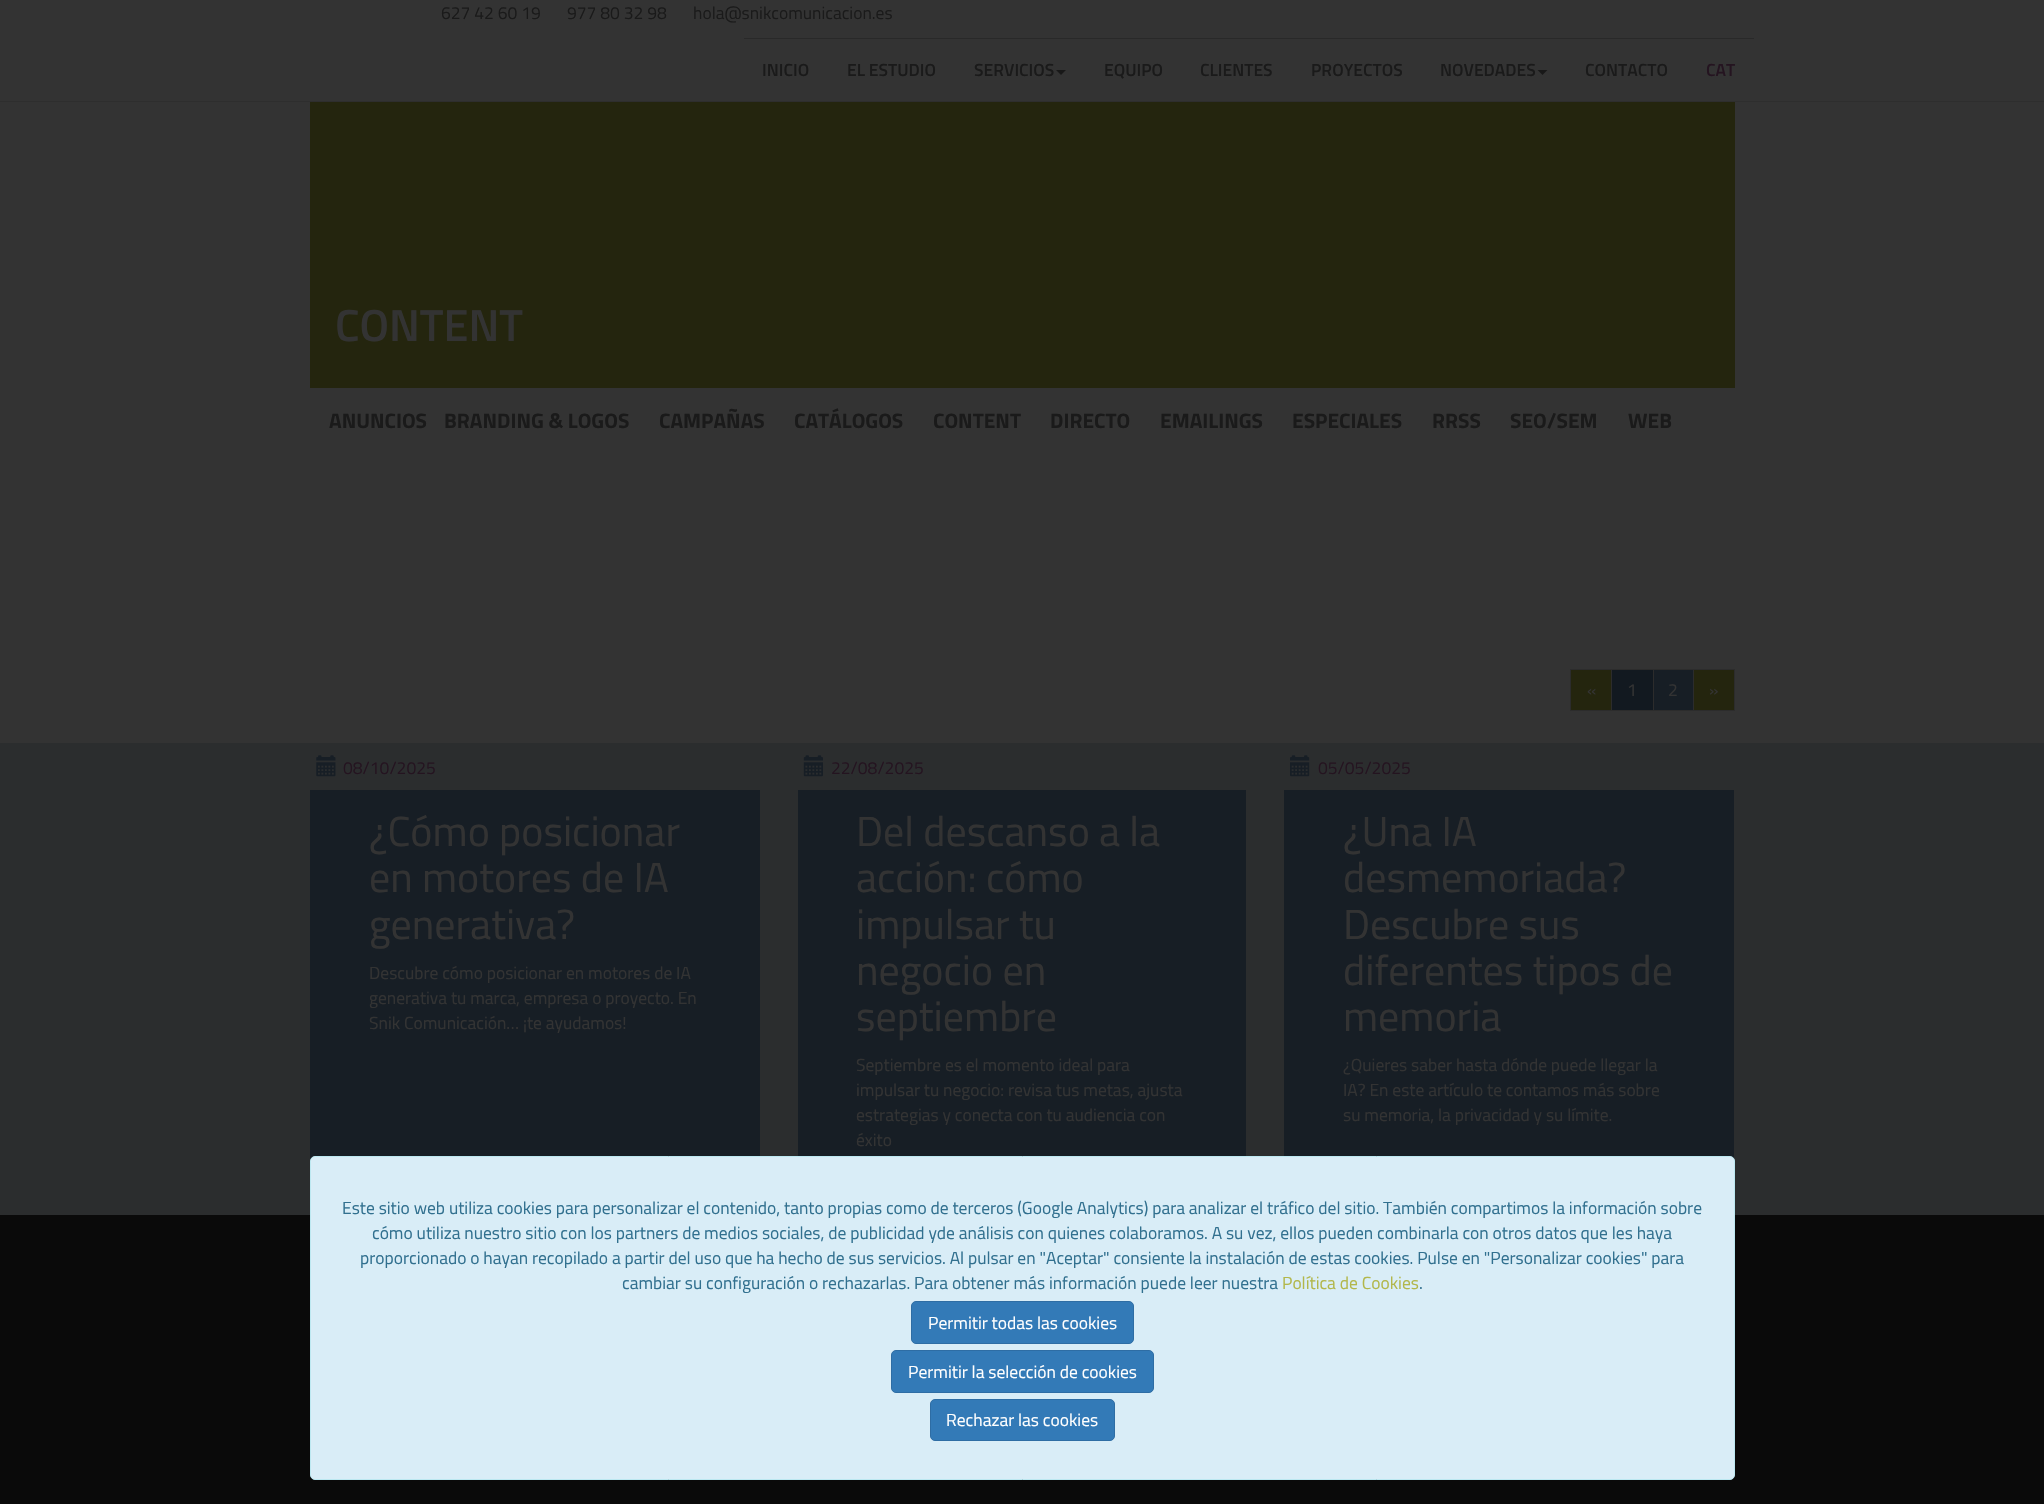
void draw(SkCanvas* canvas) {
    SkPaint paint;
    paint.setAntiAlias(true);
    canvas->clear(0xFF333333);
    paint.setColor(0xFF2E2E2E);
    canvas->drawRect(SkRect::MakeXYWH(0, 101, 2044, 1), paint);
    SkFont font1(fontMgr->matchFamilyStyle("Titillium Web", SkFontStyle::Normal()), 17.5f);
    font1.setSubpixel(true);
    paint.setColor(0xFF1A1A1A);
    canvas->drawString("627 42 60 19", 441, 19, font1, paint);
    canvas->drawString("977 80 32 98", 567, 19, font1, paint);
    canvas->drawString("hola@snikcomunicacion.es", 693, 19, font1, paint);
    paint.setColor(0xFF292929);
    canvas->drawRect(SkRect::MakeXYWH(744, 38, 1010, 1), paint);
    SkFont font2(fontMgr->matchFamilyStyle("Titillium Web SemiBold", SkFontStyle(600, SkFontStyle::kNormal_Width, SkFontStyle::kUpright_Slant)), 17.5f);
    font2.setSubpixel(true);
    paint.setColor(0xFF1A1A1A);
    canvas->drawString("INICIO", 762, 76, font2, paint);
    canvas->drawString("EL ESTUDIO", 847, 76, font2, paint);
    canvas->drawString("SERVICIOS", 974, 76, font2, paint);
    paint.setColor(0xFF181818);
    canvas->drawPath(SkPathBuilder().moveTo(1056, 70).lineTo(1066, 70).lineTo(1061, 75).close().detach(), paint);
    paint.setColor(0xFF1A1A1A);
    canvas->drawString("EQUIPO", 1104, 76, font2, paint);
    canvas->drawString("CLIENTES", 1200, 76, font2, paint);
    canvas->drawString("PROYECTOS", 1311, 76, font2, paint);
    canvas->drawString("NOVEDADES", 1440, 76, font2, paint);
    paint.setColor(0xFF181818);
    canvas->drawPath(SkPathBuilder().moveTo(1537.5f, 70).lineTo(1547.5f, 70).lineTo(1542.5f, 75).close().detach(), paint);
    paint.setColor(0xFF1A1A1A);
    canvas->drawString("CONTACTO", 1585, 76, font2, paint);
    paint.setColor(0xFF241420);
    canvas->drawString("CAT", 1706, 76, font2, paint);
    paint.setColor(0xFF24250E);
    canvas->drawRect(SkRect::MakeXYWH(310, 102, 1425, 286), paint);
    SkFont font3(fontMgr->matchFamilyStyle("Titillium Web SemiBold", SkFontStyle(600, SkFontStyle::kNormal_Width, SkFontStyle::kUpright_Slant)), 45);
    font3.setSubpixel(true);
    paint.setColor(0xFF333333);
    canvas->drawString("CONTENT", 335, 341, font3, paint);
    SkFont font4(fontMgr->matchFamilyStyle("Titillium Web", SkFontStyle::Bold()), 21);
    font4.setSubpixel(true);
    paint.setColor(0xFF1A1A1A);
    canvas->drawString("ANUNCIOS", 329, 428, font4, paint);
    canvas->drawString("BRANDING & LOGOS", 444, 428, font4, paint);
    canvas->drawString("CAMPAÑAS", 659, 428, font4, paint);
    canvas->drawString("CATÁLOGOS", 794, 428, font4, paint);
    canvas->drawString("CONTENT", 933, 428, font4, paint);
    canvas->drawString("DIRECTO", 1050, 428, font4, paint);
    canvas->drawString("EMAILINGS", 1160, 428, font4, paint);
    canvas->drawString("ESPECIALES", 1292, 428, font4, paint);
    canvas->drawString("RRSS", 1432, 428, font4, paint);
    canvas->drawString("SEO/SEM", 1510, 428, font4, paint);
    canvas->drawString("WEB", 1628, 428, font4, paint);
    paint.setColor(0xFF24250E);
    canvas->drawRect(SkRect::MakeXYWH(1571, 670, 40, 40), paint);
    paint.setStyle(SkPaint::kStroke_Style);
    paint.setStrokeWidth(1);
    paint.setColor(0xFF2C2C2C);
    canvas->drawRect(SkRect::MakeXYWH(1570.5f, 669.5f, 42, 41), paint);
    paint.setStyle(SkPaint::kFill_Style);
    paint.setColor(0xFF333333);
    canvas->drawString("«", 1587, 696, font1, paint);
    paint.setColor(0xFF121920);
    canvas->drawRect(SkRect::MakeXYWH(1611.5f, 669.5f, 42, 41), paint);
    paint.setStyle(SkPaint::kStroke_Style);
    paint.setColor(0xFF2C2C2C);
    canvas->drawRect(SkRect::MakeXYWH(1611.5f, 669.5f, 42, 41), paint);
    paint.setStyle(SkPaint::kFill_Style);
    paint.setColor(0xFF333333);
    canvas->drawString("1", 1627, 696, font1, paint);
    paint.setColor(0xFF171E25);
    canvas->drawRect(SkRect::MakeXYWH(1653.5f, 669.5f, 40, 41), paint);
    paint.setStyle(SkPaint::kStroke_Style);
    paint.setColor(0xFF2C2C2C);
    canvas->drawRect(SkRect::MakeXYWH(1653.5f, 669.5f, 40, 41), paint);
    paint.setStyle(SkPaint::kFill_Style);
    paint.setColor(0xFF333333);
    canvas->drawString("2", 1668, 696, font1, paint);
    paint.setColor(0xFF24250E);
    canvas->drawRect(SkRect::MakeXYWH(1693.5f, 669.5f, 41, 41), paint);
    paint.setStyle(SkPaint::kStroke_Style);
    paint.setColor(0xFF2C2C2C);
    canvas->drawRect(SkRect::MakeXYWH(1693.5f, 669.5f, 41, 41), paint);
    paint.setStyle(SkPaint::kFill_Style);
    paint.setColor(0xFF333333);
    canvas->drawString("»", 1709, 696, font1, paint);
    paint.setColor(0xFF2B2D2E);
    canvas->drawRect(SkRect::MakeXYWH(0, 743, 2044, 472), paint);
    canvas->drawImageRect(SkImages::DeferredFromEncodedData(SkData::MakeFromFileName("img1.png")), SkRect::MakeXYWH(316, 755, 20, 22), SkSamplingOptions());
    paint.setColor(0xFF241420);
    canvas->drawString("08/10/2025", 343, 774, font1, paint);
    paint.setColor(0xFF171E25);
    canvas->drawRect(SkRect::MakeXYWH(310, 790, 450, 371), paint);
    SkFont font5(fontMgr->matchFamilyStyle("Titillium Web", SkFontStyle::Normal()), 42);
    font5.setSubpixel(true);
    paint.setColor(0xFF333333);
    canvas->drawString("¿Cómo posicionar", 369, 846, font5, paint);
    canvas->drawString("en motores de IA", 369, 892, font5, paint);
    canvas->drawString("generativa?", 369, 939, font5, paint);
    canvas->drawString("Descubre cómo posicionar en motores de IA", 369, 979, font1, paint);
    canvas->drawString("generativa tu marca, empresa o proyecto. En", 369, 1004, font1, paint);
    canvas->drawString("Snik Comunicación… ¡te ayudamos!", 369, 1029, font1, paint);
    canvas->drawImageRect(SkImages::DeferredFromEncodedData(SkData::MakeFromFileName("img2.png")), SkRect::MakeXYWH(803, 755, 20, 22), SkSamplingOptions());
    paint.setColor(0xFF241420);
    canvas->drawString("22/08/2025", 831, 774, font1, paint);
    paint.setColor(0xFF171E25);
    canvas->drawRect(SkRect::MakeXYWH(798, 790, 448, 366), paint);
    paint.setColor(0xFF333333);
    canvas->drawString("Del descanso a la", 856, 846, font5, paint);
    canvas->drawString("acción: cómo", 856, 892, font5, paint);
    canvas->drawString("impulsar tu", 856, 939, font5, paint);
    canvas->drawString("negocio en", 856, 985, font5, paint);
    canvas->drawString("septiembre", 856, 1031, font5, paint);
    canvas->drawString("Septiembre es el momento ideal para", 856, 1071, font1, paint);
    canvas->drawString("impulsar tu negocio: revisa tus metas, ajusta", 856, 1096, font1, paint);
    canvas->drawString("estrategias y conecta con tu audiencia con", 856, 1121, font1, paint);
    canvas->drawString("éxito", 856, 1146, font1, paint);
    canvas->drawImageRect(SkImages::DeferredFromEncodedData(SkData::MakeFromFileName("img3.png")), SkRect::MakeXYWH(1290, 755, 20, 22), SkSamplingOptions());
    paint.setColor(0xFF241420);
    canvas->drawString("05/05/2025", 1318, 774, font1, paint);
    paint.setColor(0xFF171E25);
    canvas->drawRect(SkRect::MakeXYWH(1284, 790, 450, 368), paint);
    paint.setColor(0xFF333333);
    canvas->drawString("¿Una IA", 1343, 846, font5, paint);
    canvas->drawString("desmemoriada?", 1343, 892, font5, paint);
    canvas->drawString("Descubre sus", 1343, 939, font5, paint);
    canvas->drawString("diferentes tipos de", 1343, 985, font5, paint);
    canvas->drawString("memoria", 1343, 1031, font5, paint);
    canvas->drawString("¿Quieres saber hasta dónde puede llegar la", 1343, 1071, font1, paint);
    canvas->drawString("IA? En este artículo te contamos más sobre", 1343, 1096, font1, paint);
    canvas->drawString("su memoria, la privacidad y su límite.", 1343, 1121, font1, paint);
    paint.setColor(0xFF0A0A0A);
    canvas->drawRect(SkRect::MakeXYWH(0, 1215, 2044, 289), paint);
    paint.setColor(0xFFD9EDF7);
    canvas->drawRoundRect(SkRect::MakeXYWH(310.5f, 1156.5f, 1424, 323), 4.5f, 4.5f, paint);
    paint.setStyle(SkPaint::kStroke_Style);
    paint.setColor(0xFFBCE8F1);
    canvas->drawRoundRect(SkRect::MakeXYWH(310.5f, 1156.5f, 1424, 323), 4.5f, 4.5f, paint);
    paint.setStyle(SkPaint::kFill_Style);
    paint.setColor(0xFF31708F);
    canvas->drawString("Este sitio web utiliza cookies para personalizar el contenido, tanto propias como de terceros (Google Analytics) para analizar el tráfico del sitio. También compartimos la información sobre", 342, 1214, font1, paint);
    canvas->drawString("cómo utiliza nuestro sitio con los partners de medios sociales, de publicidad yde análisis con quienes colaboramos. A su vez, ellos pueden combinarla con otros datos que les haya", 372, 1239, font1, paint);
    canvas->drawString("proporcionado o hayan recopilado a partir del uso que ha hecho de sus servicios. Al pulsar en \"Aceptar\" consiente la instalación de estas cookies. Pulse en \"Personalizar cookies\" para", 360, 1264, font1, paint);
    canvas->drawString("cambiar su configuración o rechazarlas. Para obtener más información puede leer nuestra", 622, 1289, font1, paint);
    paint.setColor(0xFFB2B74B);
    canvas->drawString("Política de Cookies", 1282, 1289, font1, paint);
    paint.setColor(0xFF31708F);
    canvas->drawString(".", 1419, 1289, font1, paint);
    paint.setColor(0xFF337AB7);
    canvas->drawRoundRect(SkRect::MakeXYWH(911.5f, 1301.5f, 222, 42), 4.5f, 4.5f, paint);
    paint.setStyle(SkPaint::kStroke_Style);
    paint.setColor(0xFF2E6DA4);
    canvas->drawRoundRect(SkRect::MakeXYWH(911.5f, 1301.5f, 222, 42), 4.5f, 4.5f, paint);
    paint.setStyle(SkPaint::kFill_Style);
    paint.setColor(0xFFFFFFFF);
    canvas->drawString("Permitir todas las cookies", 928, 1329, font1, paint);
    paint.setColor(0xFF337AB7);
    canvas->drawRoundRect(SkRect::MakeXYWH(891.5f, 1350.5f, 262, 42), 4.5f, 4.5f, paint);
    paint.setStyle(SkPaint::kStroke_Style);
    paint.setColor(0xFF2E6DA4);
    canvas->drawRoundRect(SkRect::MakeXYWH(891.5f, 1350.5f, 262, 42), 4.5f, 4.5f, paint);
    paint.setStyle(SkPaint::kFill_Style);
    paint.setColor(0xFFFFFFFF);
    canvas->drawString("Permitir la selección de cookies", 908, 1378, font1, paint);
    paint.setColor(0xFF337AB7);
    canvas->drawRoundRect(SkRect::MakeXYWH(930.5f, 1399.5f, 184, 41), 4.5f, 4.5f, paint);
    paint.setStyle(SkPaint::kStroke_Style);
    paint.setColor(0xFF2E6DA4);
    canvas->drawRoundRect(SkRect::MakeXYWH(930.5f, 1399.5f, 184, 41), 4.5f, 4.5f, paint);
    paint.setStyle(SkPaint::kFill_Style);
    paint.setColor(0xFFFFFFFF);
    canvas->drawString("Rechazar las cookies", 946, 1426, font1, paint);
}
